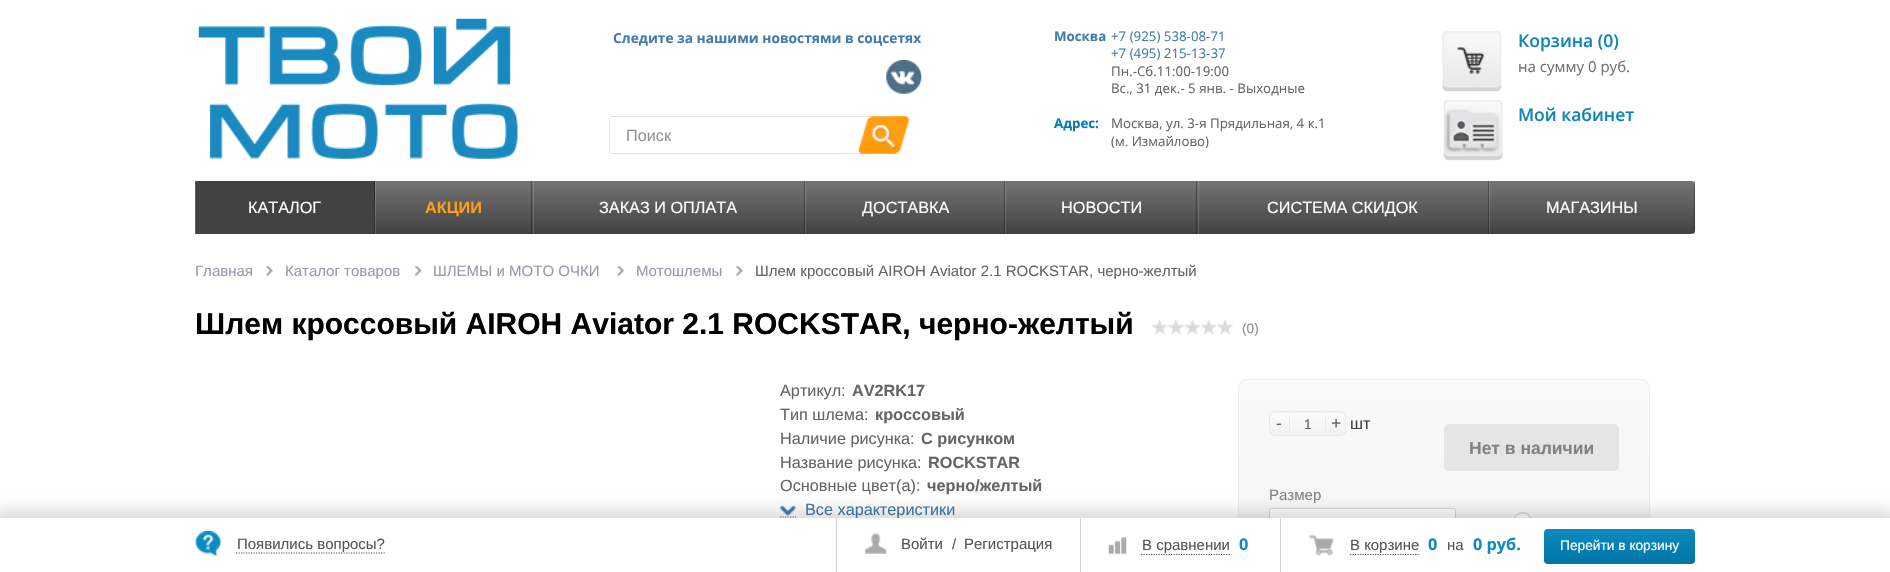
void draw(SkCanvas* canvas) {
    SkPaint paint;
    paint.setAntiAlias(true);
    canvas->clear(0xFFFFFFFF);
    canvas->drawImageRect(SkImages::DeferredFromEncodedData(SkData::MakeFromFileName("img1.png")), SkRect::MakeXYWH(198, 18, 320, 141), SkSamplingOptions());
    SkFont font1(fontMgr->matchFamilyStyle("Open Sans", SkFontStyle::Bold()), 13.75f);
    font1.setSubpixel(true);
    paint.setColor(0xFF427BAD);
    canvas->drawString("Следите за нашими новостями в соцсетях", 613, 43, font1, paint);
    canvas->drawImageRect(SkImages::DeferredFromEncodedData(SkData::MakeFromFileName("img2.png")), SkRect::MakeXYWH(886, 60, 36, 34), SkSamplingOptions());
    paint.setColor(0xFFE4E4E4);
    canvas->drawRect(SkRect::MakeXYWH(610, 116, 260, 1), paint);
    canvas->drawRect(SkRect::MakeXYWH(610, 153, 260, 1), paint);
    canvas->drawRect(SkRect::MakeXYWH(609, 118, 1, 35), paint);
    SkFont font2(fontMgr->matchFamilyStyle("Liberation Sans", SkFontStyle::Normal()), 16.25f);
    font2.setSubpixel(true);
    paint.setColor(0xFF959595);
    canvas->drawString("Поиск", 626, 141, font2, paint);
    canvas->drawImageRect(SkImages::DeferredFromEncodedData(SkData::MakeFromFileName("img3.png")), SkRect::MakeXYWH(858, 116, 51, 38), SkSamplingOptions());
    SkFont font3(fontMgr->matchFamilyStyle("Open Sans", SkFontStyle::Bold()), 13.3f);
    font3.setSubpixel(true);
    paint.setColor(0xFF427BAD);
    canvas->drawString("Москва", 1054, 41, font3, paint);
    SkFont font4(fontMgr->matchFamilyStyle("Open Sans", SkFontStyle::Normal()), 13.3f);
    font4.setSubpixel(true);
    canvas->drawString("+7 (925) 538-08-71", 1111, 41, font4, paint);
    canvas->drawString("+7 (495) 215-13-37", 1111, 58, font4, paint);
    paint.setColor(0xFF656565);
    canvas->drawString("Пн.-Сб.11:00-19:00", 1111, 76, font4, paint);
    canvas->drawString("Вс., 31 дек.- 5 янв. - Выходные", 1111, 93, font4, paint);
    paint.setColor(0xFF007FB2);
    canvas->drawString("Адрес:", 1054, 128, font3, paint);
    paint.setColor(0xFF656565);
    canvas->drawString("Москва, ул. 3-я Прядильная, 4 к.1", 1111, 128, font4, paint);
    canvas->drawString("(м. Измайлово)", 1111, 146, font4, paint);
    canvas->drawImageRect(SkImages::DeferredFromEncodedData(SkData::MakeFromFileName("img4.png")), SkRect::MakeXYWH(1442, 31, 60, 61), SkSamplingOptions());
    SkFont font5(fontMgr->matchFamilyStyle("Open Sans", SkFontStyle(600, SkFontStyle::kNormal_Width, SkFontStyle::kUpright_Slant)), 17.5f);
    font5.setSubpixel(true);
    paint.setColor(0xFF0C86B7);
    canvas->drawString("Корзина (0)", 1518, 47, font5, paint);
    SkFont font6(fontMgr->matchFamilyStyle("Open Sans", SkFontStyle::Normal()), 15);
    font6.setSubpixel(true);
    paint.setColor(0xFF6F6F6F);
    canvas->drawString("на сумму 0 руб.", 1518, 72, font6, paint);
    canvas->drawImageRect(SkImages::DeferredFromEncodedData(SkData::MakeFromFileName("img5.png")), SkRect::MakeXYWH(1443, 100, 60, 61), SkSamplingOptions());
    paint.setColor(0xFF0C86B7);
    canvas->drawString("Мой кабинет", 1518, 121, font5, paint);
    {
        const SkColor colors[] = {0xFF747474, 0xFF424242};
        const float stops[] = {0, 1};
        const SkPoint ends[] = {{945, 181}, {945, 234}};
        paint.setShader(SkGradientShader::MakeLinear(ends, colors, stops, 2, SkTileMode::kClamp));
        paint.setAlpha(255);
    }
    canvas->drawRoundRect(SkRect::MakeXYWH(195, 181, 1500, 53), 4, 4, paint);
    {
        const SkColor colors[] = {0xFF898989, 0xFF5E5E5E};
        const float stops[] = {0, 1};
        const SkPoint ends[] = {{945, 181}, {945, 234}};
        paint.setShader(SkGradientShader::MakeLinear(ends, colors, stops, 2, SkTileMode::kClamp));
        paint.setAlpha(255);
    }
    canvas->drawRect(SkRect::MakeXYWH(1489, 181, 1, 53), paint);
    canvas->drawRect(SkRect::MakeXYWH(1198, 181, 1, 53), paint);
    {
        const SkColor colors[] = {0xFF515151, 0xFF2E2E2E};
        const float stops[] = {0, 1};
        const SkPoint ends[] = {{945, 181}, {945, 234}};
        paint.setShader(SkGradientShader::MakeLinear(ends, colors, stops, 2, SkTileMode::kClamp));
        paint.setAlpha(255);
    }
    canvas->drawRect(SkRect::MakeXYWH(1488, 181, 1, 53), paint);
    {
        const SkColor colors[] = {0xFF898989, 0xFF5E5E5E};
        const float stops[] = {0, 1};
        const SkPoint ends[] = {{945, 181}, {945, 234}};
        paint.setShader(SkGradientShader::MakeLinear(ends, colors, stops, 2, SkTileMode::kClamp));
        paint.setAlpha(255);
    }
    canvas->drawRect(SkRect::MakeXYWH(1005, 181, 1, 53), paint);
    {
        const SkColor colors[] = {0xFF515151, 0xFF2E2E2E};
        const float stops[] = {0, 1};
        const SkPoint ends[] = {{945, 181}, {945, 234}};
        paint.setShader(SkGradientShader::MakeLinear(ends, colors, stops, 2, SkTileMode::kClamp));
        paint.setAlpha(255);
    }
    canvas->drawRect(SkRect::MakeXYWH(1196, 181, 1, 53), paint);
    {
        const SkColor colors[] = {0xFF898989, 0xFF5E5E5E};
        const float stops[] = {0, 1};
        const SkPoint ends[] = {{945, 181}, {945, 234}};
        paint.setShader(SkGradientShader::MakeLinear(ends, colors, stops, 2, SkTileMode::kClamp));
        paint.setAlpha(255);
    }
    canvas->drawRect(SkRect::MakeXYWH(805, 181, 1, 53), paint);
    {
        const SkColor colors[] = {0xFF515151, 0xFF2E2E2E};
        const float stops[] = {0, 1};
        const SkPoint ends[] = {{945, 181}, {945, 234}};
        paint.setShader(SkGradientShader::MakeLinear(ends, colors, stops, 2, SkTileMode::kClamp));
        paint.setAlpha(255);
    }
    canvas->drawRect(SkRect::MakeXYWH(1004, 181, 1, 53), paint);
    {
        const SkColor colors[] = {0xFF898989, 0xFF5E5E5E};
        const float stops[] = {0, 1};
        const SkPoint ends[] = {{945, 181}, {945, 234}};
        paint.setShader(SkGradientShader::MakeLinear(ends, colors, stops, 2, SkTileMode::kClamp));
        paint.setAlpha(255);
    }
    canvas->drawRect(SkRect::MakeXYWH(533, 181, 1, 53), paint);
    {
        const SkColor colors[] = {0xFF515151, 0xFF2E2E2E};
        const float stops[] = {0, 1};
        const SkPoint ends[] = {{945, 181}, {945, 234}};
        paint.setShader(SkGradientShader::MakeLinear(ends, colors, stops, 2, SkTileMode::kClamp));
        paint.setAlpha(255);
    }
    canvas->drawRect(SkRect::MakeXYWH(804, 181, 1, 53), paint);
    {
        const SkColor colors[] = {0xFF898989, 0xFF5E5E5E};
        const float stops[] = {0, 1};
        const SkPoint ends[] = {{945, 181}, {945, 234}};
        paint.setShader(SkGradientShader::MakeLinear(ends, colors, stops, 2, SkTileMode::kClamp));
        paint.setAlpha(255);
    }
    canvas->drawRect(SkRect::MakeXYWH(375, 181, 1, 53), paint);
    {
        const SkColor colors[] = {0xFF515151, 0xFF2E2E2E};
        const float stops[] = {0, 1};
        const SkPoint ends[] = {{945, 181}, {945, 234}};
        paint.setShader(SkGradientShader::MakeLinear(ends, colors, stops, 2, SkTileMode::kClamp));
        paint.setAlpha(255);
    }
    canvas->drawRect(SkRect::MakeXYWH(531, 181, 1, 53), paint);
    paint.setShader(nullptr);
    paint.setColor(0xFF424243);
    canvas->drawRect(SkRect::MakeXYWH(196, 181, 178, 53), paint);
    paint.setColor(0xFF2E2E2F);
    canvas->drawRect(SkRect::MakeXYWH(374, 181, 1, 53), paint);
    paint.setColor(0xFF5E5E5F);
    canvas->drawRect(SkRect::MakeXYWH(195, 181, 1, 53), paint);
    paint.setColor(0xFFFFFFFF);
    canvas->drawString("КАТАЛОГ", 248, 213, font2, paint);
    SkFont font7(fontMgr->matchFamilyStyle("Liberation Sans", SkFontStyle::Bold()), 16.25f);
    font7.setSubpixel(true);
    paint.setColor(0xFFFF9F15);
    canvas->drawString("АКЦИИ", 425, 213, font7, paint);
    paint.setColor(0xFFFFFFFF);
    canvas->drawString("ЗАКАЗ И ОПЛАТА", 599, 213, font2, paint);
    canvas->drawString("ДОСТАВКА", 862, 213, font2, paint);
    canvas->drawString("НОВОСТИ", 1061, 213, font2, paint);
    canvas->drawString("СИСТЕМА СКИДОК", 1267, 213, font2, paint);
    paint.setColor(0x4D000000);
    canvas->drawRect(SkRect::MakeXYWH(1694, 181, 1, 53), paint);
    paint.setColor(0xFFFFFFFF);
    canvas->drawString("МАГАЗИНЫ", 1546, 213, font2, paint);
    SkFont font8(fontMgr->matchFamilyStyle("Liberation Sans", SkFontStyle::Normal()), 15);
    font8.setSubpixel(true);
    paint.setColor(0xFF9999AF);
    canvas->drawString("Главная", 195, 276, font8, paint);
    canvas->drawImageRect(SkImages::DeferredFromEncodedData(SkData::MakeFromFileName("img6.png")), SkRect::MakeXYWH(266, 266, 7, 11), SkSamplingOptions());
    canvas->drawString("Каталог товаров", 285, 276, font8, paint);
    canvas->drawImageRect(SkImages::DeferredFromEncodedData(SkData::MakeFromFileName("img7.png")), SkRect::MakeXYWH(415, 266, 7, 11), SkSamplingOptions());
    canvas->drawString("ШЛЕМЫ и МОТО ОЧКИ", 433, 276, font8, paint);
    canvas->drawImageRect(SkImages::DeferredFromEncodedData(SkData::MakeFromFileName("img8.png")), SkRect::MakeXYWH(617, 266, 7, 11), SkSamplingOptions());
    canvas->drawString("Мотошлемы", 636, 276, font8, paint);
    canvas->drawImageRect(SkImages::DeferredFromEncodedData(SkData::MakeFromFileName("img9.png")), SkRect::MakeXYWH(736, 266, 7, 11), SkSamplingOptions());
    paint.setColor(0xFF656565);
    canvas->drawString("Шлем кроссовый AIROH Aviator 2.1 ROCKSTAR, черно-желтый", 755, 276, font8, paint);
    SkFont font9(fontMgr->matchFamilyStyle("Liberation Sans", SkFontStyle::Bold()), 30);
    font9.setSubpixel(true);
    paint.setColor(0xFF000000);
    canvas->drawString("Шлем кроссовый AIROH Aviator 2.1 ROCKSTAR, черно-желтый", 195, 334, font9, paint);
    paint.setColor(0xFFDADADA);
    canvas->drawRect(SkRect::MakeXYWH(1151, 318, 83, 18), paint);
    canvas->drawImageRect(SkImages::DeferredFromEncodedData(SkData::MakeFromFileName("img10.png")), SkRect::MakeXYWH(1150, 309, 85, 37), SkSamplingOptions());
    SkFont font10(fontMgr->matchFamilyStyle("Liberation Sans", SkFontStyle::Normal()), 13.75f);
    font10.setSubpixel(true);
    paint.setColor(0xFF8D8D8D);
    canvas->drawString("(0)", 1242, 333, font10, paint);
    paint.setColor(0xFF656565);
    canvas->drawString("Артикул:", 780, 396, font2, paint);
    canvas->drawString("AV2RK17", 852, 396, font7, paint);
    canvas->drawString("Тип шлема:", 780, 420, font2, paint);
    canvas->drawString("кроссовый", 875, 420, font7, paint);
    canvas->drawString("Наличие рисунка:", 780, 444, font2, paint);
    canvas->drawString("С рисунком", 921, 444, font7, paint);
    canvas->drawString("Название рисунка:", 780, 468, font2, paint);
    canvas->drawString("ROCKSTAR", 928, 468, font7, paint);
    canvas->drawString("Основные цвет(а):", 780, 491, font2, paint);
    canvas->drawString("черно/желтый", 927, 491, font7, paint);
    paint.setStyle(SkPaint::kStroke_Style);
    paint.setStrokeWidth(1.2f);
    paint.setColor(0xFF427BAD);
    paint.setPathEffect(SkDashPathEffect::Make({{1.25f, 1.25f}}, 0));
    canvas->drawPath(SkPathBuilder().moveTo(780, 517).lineTo(796, 517).detach(), paint);
    paint.setPathEffect(nullptr);
    canvas->drawImageRect(SkImages::DeferredFromEncodedData(SkData::MakeFromFileName("img11.png")), SkRect::MakeXYWH(780, 505, 17, 11), SkSamplingOptions());
    paint.setStyle(SkPaint::kFill_Style);
    canvas->drawString("Все характеристики", 805, 515, font2, paint);
    canvas->save();
    canvas->clipPath(SkPathBuilder().moveTo(1247, 379).lineTo(1641, 379).cubicTo(1646, 379, 1650, 383, 1650, 388).lineTo(1650, 572).cubicTo(1650, 577, 1646, 581, 1641, 581).lineTo(1247, 581).cubicTo(1242, 581, 1238, 577, 1238, 572).lineTo(1238, 388).cubicTo(1238, 383, 1242, 379, 1247, 379).close().detach(), true);
    {
        const SkColor colors[] = {0xFFFAF9F9, 0xFFF5F5F5};
        const float stops[] = {0, 1};
        const SkPoint ends[] = {{1444, 380}, {1444, 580}};
        paint.setShader(SkGradientShader::MakeLinear(ends, colors, stops, 2, SkTileMode::kClamp));
        paint.setAlpha(255);
    }
    canvas->drawRect(SkRect::MakeXYWH(1238, 380, 412, 138), paint);
    canvas->restore();
    paint.setStyle(SkPaint::kStroke_Style);
    paint.setStrokeWidth(1);
    paint.setShader(nullptr);
    paint.setColor(0xFFEDEDED);
    canvas->drawRoundRect(SkRect::MakeXYWH(1238.5f, 379.5f, 411, 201), 8.5f, 8.5f, paint);
    canvas->save();
    canvas->clipPath(SkPathBuilder().moveTo(1275, 411).lineTo(1340, 411).cubicTo(1343.5f, 411, 1346, 413.5f, 1346, 417).lineTo(1346, 430).cubicTo(1346, 433.5f, 1343.5f, 436, 1340, 436).lineTo(1275, 436).cubicTo(1271.5f, 436, 1269, 433.5f, 1269, 430).lineTo(1269, 417).cubicTo(1269, 413.5f, 1271.5f, 411, 1275, 411).close().detach(), true);
    paint.setStyle(SkPaint::kFill_Style);
    {
        const SkColor colors[] = {0xFFFCFCFC, 0xFFF1F1F1};
        const float stops[] = {0, 1};
        const SkPoint ends[] = {{1308, 390}, {1308, 413}};
        paint.setShader(SkGradientShader::MakeLinear(ends, colors, stops, 2, SkTileMode::kClamp));
        paint.setAlpha(255);
    }
    canvas->drawRect(SkRect::MakeXYWH(1269, 411, 77, 2), paint);
    {
        const SkColor colors[] = {0xFFFCFCFC, 0xFFF1F1F1};
        const float stops[] = {0, 1};
        const SkPoint ends[] = {{1308, 413}, {1308, 435}};
        paint.setShader(SkGradientShader::MakeLinear(ends, colors, stops, 2, SkTileMode::kClamp));
        paint.setAlpha(255);
    }
    canvas->drawRect(SkRect::MakeXYWH(1269, 413, 77, 22), paint);
    canvas->restore();
    paint.setStyle(SkPaint::kStroke_Style);
    paint.setShader(nullptr);
    paint.setColor(0xFFE9E9E9);
    canvas->drawRoundRect(SkRect::MakeXYWH(1269.5f, 411.5f, 76, 24), 5.5f, 5.5f, paint);
    paint.setStyle(SkPaint::kFill_Style);
    canvas->drawRect(SkRect::MakeXYWH(1289, 415, 1, 19), paint);
    SkFont font11(fontMgr->matchFamilyStyle("Liberation Sans", SkFontStyle::Normal()), 17.5f);
    font11.setSubpixel(true);
    paint.setColor(0xFF656565);
    canvas->drawString("-", 1276, 429, font11, paint);
    canvas->drawString("1", 1304, 429, font10, paint);
    paint.setColor(0xFFE9E9E9);
    canvas->drawRect(SkRect::MakeXYWH(1325, 415, 1, 19), paint);
    paint.setColor(0xFF656565);
    canvas->drawString("+", 1331, 429, font11, paint);
    paint.setColor(0xFF3F3F3F);
    canvas->drawString("шт", 1350, 429, font2, paint);
    paint.setColor(0xFFE5E5E5);
    canvas->drawRoundRect(SkRect::MakeXYWH(1444, 424, 175, 47), 5, 5, paint);
    SkFont font12(fontMgr->matchFamilyStyle("Liberation Sans", SkFontStyle::Bold()), 17.5f);
    font12.setSubpixel(true);
    paint.setColor(0xFF828282);
    canvas->drawString("Нет в наличии", 1469, 454, font12, paint);
    canvas->drawString("Размер", 1269, 500, font8, paint);
    paint.setColor(0xFFFFFFFF);
    canvas->drawRoundRect(SkRect::MakeXYWH(1269.5f, 508.5f, 186, 31), 2, 2, paint);
    paint.setStyle(SkPaint::kStroke_Style);
    paint.setColor(0xFFD3D3D3);
    canvas->drawRoundRect(SkRect::MakeXYWH(1269.5f, 508.5f, 186, 31), 2, 2, paint);
    canvas->drawImageRect(SkImages::DeferredFromEncodedData(SkData::MakeFromFileName("img12.png")), SkRect::MakeXYWH(1512, 512, 21, 6), SkSamplingOptions());
    paint.setStyle(SkPaint::kFill_Style);
    paint.setColor(0x26000000);
    paint.setMaskFilter(SkMaskFilter::MakeBlur(kNormal_SkBlurStyle, 7.5f));
    canvas->drawRect(SkRect::MakeXYWH(-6, 511, 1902, 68), paint);
    paint.setMaskFilter(nullptr);
    paint.setColor(0xFFFFFFFF);
    canvas->drawRect(SkRect::MakeXYWH(0, 518, 1890, 54), paint);
    canvas->drawImageRect(SkImages::DeferredFromEncodedData(SkData::MakeFromFileName("img13.png")), SkRect::MakeXYWH(195, 531, 27, 26), SkSamplingOptions());
    paint.setStyle(SkPaint::kStroke_Style);
    paint.setStrokeWidth(1.2f);
    paint.setColor(0xFF565656);
    paint.setPathEffect(SkDashPathEffect::Make({{1.25f, 1.25f}}, 0));
    canvas->drawPath(SkPathBuilder().moveTo(236, 553).lineTo(385, 553).detach(), paint);
    paint.setPathEffect(nullptr);
    paint.setStyle(SkPaint::kFill_Style);
    canvas->drawString("Появились вопросы?", 237, 549, font8, paint);
    paint.setColor(0xFFD4D4D4);
    canvas->drawRect(SkRect::MakeXYWH(836, 518, 1, 54), paint);
    canvas->drawImageRect(SkImages::DeferredFromEncodedData(SkData::MakeFromFileName("img14.png")), SkRect::MakeXYWH(864, 533, 23, 21), SkSamplingOptions());
    paint.setColor(0xFF565656);
    canvas->drawString("Войти", 901, 549, font8, paint);
    canvas->drawString("/", 952, 549, font8, paint);
    canvas->drawString("Регистрация", 964, 549, font8, paint);
    paint.setColor(0xFFD4D4D4);
    canvas->drawRect(SkRect::MakeXYWH(1080, 518, 1, 54), paint);
    canvas->drawImageRect(SkImages::DeferredFromEncodedData(SkData::MakeFromFileName("img15.png")), SkRect::MakeXYWH(1108, 537, 19, 18), SkSamplingOptions());
    paint.setStyle(SkPaint::kStroke_Style);
    paint.setColor(0xFF565656);
    paint.setPathEffect(SkDashPathEffect::Make({{1.25f, 1.25f}}, 0));
    canvas->drawPath(SkPathBuilder().moveTo(1141, 554.5f).lineTo(1230, 554.5f).detach(), paint);
    paint.setPathEffect(nullptr);
    paint.setStyle(SkPaint::kFill_Style);
    canvas->drawString("В сравнении", 1142, 550, font8, paint);
    SkFont font13(fontMgr->matchFamilyStyle("Open Sans", SkFontStyle::Bold()), 16.25f);
    font13.setSubpixel(true);
    paint.setColor(0xFF0D8BBF);
    canvas->drawString("0", 1239, 550, font13, paint);
    paint.setColor(0xFFD4D4D4);
    canvas->drawRect(SkRect::MakeXYWH(1280, 518, 1, 54), paint);
    canvas->drawImageRect(SkImages::DeferredFromEncodedData(SkData::MakeFromFileName("img16.png")), SkRect::MakeXYWH(1308, 534, 26, 22), SkSamplingOptions());
    paint.setStyle(SkPaint::kStroke_Style);
    paint.setColor(0xFF565656);
    paint.setPathEffect(SkDashPathEffect::Make({{1.25f, 1.25f}}, 0));
    canvas->drawPath(SkPathBuilder().moveTo(1350, 554.5f).lineTo(1419, 554.5f).detach(), paint);
    paint.setPathEffect(nullptr);
    paint.setStyle(SkPaint::kFill_Style);
    canvas->drawString("В корзине", 1350, 550, font8, paint);
    paint.setColor(0xFF0D8BBF);
    canvas->drawString("0", 1428, 550, font13, paint);
    paint.setColor(0xFF565656);
    canvas->drawString("на", 1447, 550, font8, paint);
    paint.setColor(0xFF0D8BBF);
    canvas->drawString("0 руб.", 1473, 550, font13, paint);
    {
        const SkColor colors[] = {0xFF0C8ABE, 0xFF0074A6};
        const float stops[] = {0, 1};
        const SkPoint ends[] = {{1619, 529}, {1619, 564}};
        paint.setShader(SkGradientShader::MakeLinear(ends, colors, stops, 2, SkTileMode::kClamp));
        paint.setAlpha(255);
    }
    canvas->drawRoundRect(SkRect::MakeXYWH(1544, 529, 151, 35), 4, 4, paint);
    paint.setShader(nullptr);
    paint.setColor(0xFFFFFFFF);
    canvas->drawString("Перейти в корзину", 1560, 550, font10, paint);
}
